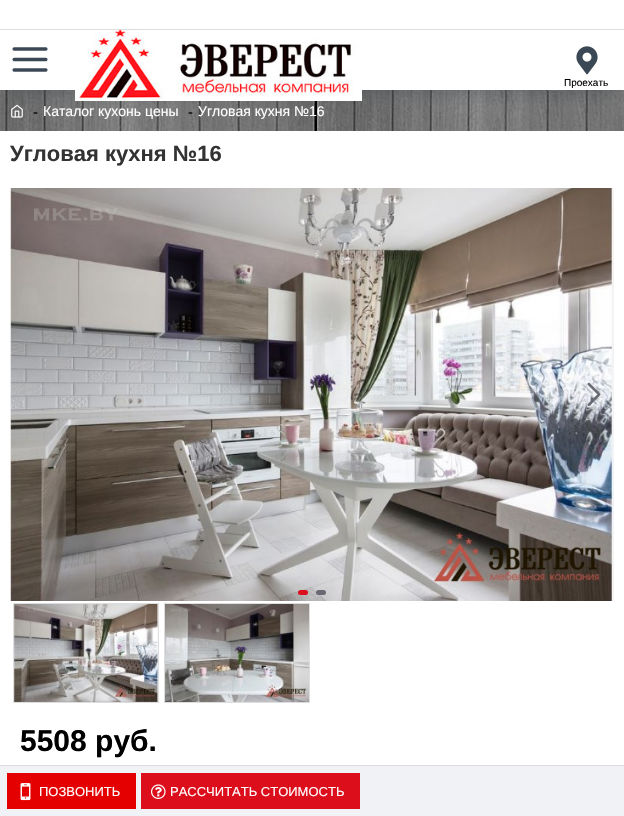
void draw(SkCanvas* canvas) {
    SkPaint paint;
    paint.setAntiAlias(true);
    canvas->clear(0xFFFFFFFF);
    paint.setColor(0xFFDDDDDD);
    canvas->drawRect(SkRect::MakeXYWH(0, 29, 624, 1), paint);
    canvas->drawImageRect(SkImages::DeferredFromEncodedData(SkData::MakeFromFileName("img4.png")), SkRect::MakeXYWH(0, 90, 624, 41), SkSamplingOptions());
    canvas->drawImageRect(SkImages::DeferredFromEncodedData(SkData::MakeFromFileName("img5.png")), SkRect::MakeXYWH(11, 104, 12, 14), SkSamplingOptions());
    canvas->save();
    canvas->clipRect(SkRect::MakeXYWH(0, 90, 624, 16));
    paint.setColor(0x472C3640);
    paint.setMaskFilter(SkMaskFilter::MakeBlur(kNormal_SkBlurStyle, 7.5f));
    canvas->drawRect(SkRect::MakeXYWH(10, 55, 604, 40), paint);
    paint.setMaskFilter(nullptr);
    canvas->restore();
    canvas->drawImageRect(SkImages::DeferredFromEncodedData(SkData::MakeFromFileName("img1.png")), SkRect::MakeXYWH(75, 30, 287, 71), SkSamplingOptions());
    canvas->drawImageRect(SkImages::DeferredFromEncodedData(SkData::MakeFromFileName("img2.png")), SkRect::MakeXYWH(12, 47, 36, 25), SkSamplingOptions());
    canvas->drawImageRect(SkImages::DeferredFromEncodedData(SkData::MakeFromFileName("img3.png")), SkRect::MakeXYWH(576, 46, 22, 29), SkSamplingOptions());
    SkFont font1(fontMgr->matchFamilyStyle("Liberation Sans", SkFontStyle::Normal()), 10);
    font1.setSubpixel(true);
    paint.setColor(0xFF000000);
    canvas->drawString("Проехать", 564, 86, font1, paint);
    SkFont font2(fontMgr->matchFamilyStyle("Liberation Sans", SkFontStyle::Normal()), 15);
    font2.setSubpixel(true);
    canvas->drawString("-", 33, 117, font2, paint);
    SkFont font3(fontMgr->matchFamilyStyle("Liberation Sans", SkFontStyle::Normal()), 14);
    font3.setSubpixel(true);
    paint.setColor(0xFFFFFFFF);
    canvas->drawString("Каталог кухонь цены", 43, 116, font3, paint);
    paint.setColor(0xFF000000);
    canvas->drawString("-", 188, 117, font2, paint);
    paint.setColor(0xFFFFFFFF);
    canvas->drawString("Угловая кухня №16", 198, 116, font3, paint);
    SkFont font4(fontMgr->matchFamilyStyle("Liberation Sans", SkFontStyle::Bold()), 22);
    font4.setSubpixel(true);
    paint.setColor(0xFF333333);
    canvas->drawString("Угловая кухня №16", 10, 161, font4, paint);
    canvas->drawImageRect(SkImages::DeferredFromEncodedData(SkData::MakeFromFileName("img6.png")), SkRect::MakeXYWH(10, 188, 604, 413), SkSamplingOptions());
    canvas->drawImageRect(SkImages::DeferredFromEncodedData(SkData::MakeFromFileName("img7.png")), SkRect::MakeXYWH(587, 382, 14, 25), SkSamplingOptions());
    paint.setColor(0xFFDD0E1C);
    canvas->drawRoundRect(SkRect::MakeXYWH(298, 590, 10, 5), 2.5f, 2.5f, paint);
    paint.setColor(0xFF696973);
    canvas->drawRoundRect(SkRect::MakeXYWH(316, 590, 10, 5), 2.5f, 2.5f, paint);
    paint.setStyle(SkPaint::kStroke_Style);
    paint.setStrokeWidth(1);
    paint.setColor(0xFFDDDDDD);
    canvas->drawRect(SkRect::MakeXYWH(13.5f, 603.5f, 145, 99), paint);
    canvas->drawImageRect(SkImages::DeferredFromEncodedData(SkData::MakeFromFileName("img8.png")), SkRect::MakeXYWH(14, 604, 144, 98), SkSamplingOptions());
    canvas->drawRect(SkRect::MakeXYWH(164.5f, 603.5f, 145, 99), paint);
    canvas->drawImageRect(SkImages::DeferredFromEncodedData(SkData::MakeFromFileName("img9.png")), SkRect::MakeXYWH(165, 604, 144, 98), SkSamplingOptions());
    SkFont font5(fontMgr->matchFamilyStyle("Liberation Sans", SkFontStyle::Bold()), 30);
    font5.setSubpixel(true);
    paint.setStyle(SkPaint::kFill_Style);
    paint.setColor(0xFF000000);
    canvas->drawString("5508 руб.", 20, 751, font5, paint);
    paint.setColor(0xFFF0F2F5);
    canvas->drawRect(SkRect::MakeXYWH(0, 766, 624, 50), paint);
    paint.setColor(0xFFDDDDDD);
    canvas->drawRect(SkRect::MakeXYWH(0, 765, 624, 1), paint);
    paint.setColor(0xFFE40000);
    canvas->drawRect(SkRect::MakeXYWH(7, 773, 129, 36), paint);
    canvas->drawImageRect(SkImages::DeferredFromEncodedData(SkData::MakeFromFileName("img10.png")), SkRect::MakeXYWH(20, 783, 11, 18), SkSamplingOptions());
    SkFont font6(fontMgr->matchFamilyStyle("Liberation Sans", SkFontStyle::Normal()), 13);
    font6.setSubpixel(true);
    paint.setColor(0xFFFFFFFF);
    canvas->drawString("ПОЗВОНИТЬ", 39, 796, font6, paint);
    paint.setColor(0xFFDD0E1C);
    canvas->drawRect(SkRect::MakeXYWH(141, 773, 219, 36), paint);
    canvas->drawImageRect(SkImages::DeferredFromEncodedData(SkData::MakeFromFileName("img11.png")), SkRect::MakeXYWH(151, 784, 15, 15), SkSamplingOptions());
    paint.setColor(0xFFFFFFFF);
    canvas->drawString("РАССЧИТАТЬ СТОИМОСТЬ", 170, 796, font6, paint);
}
